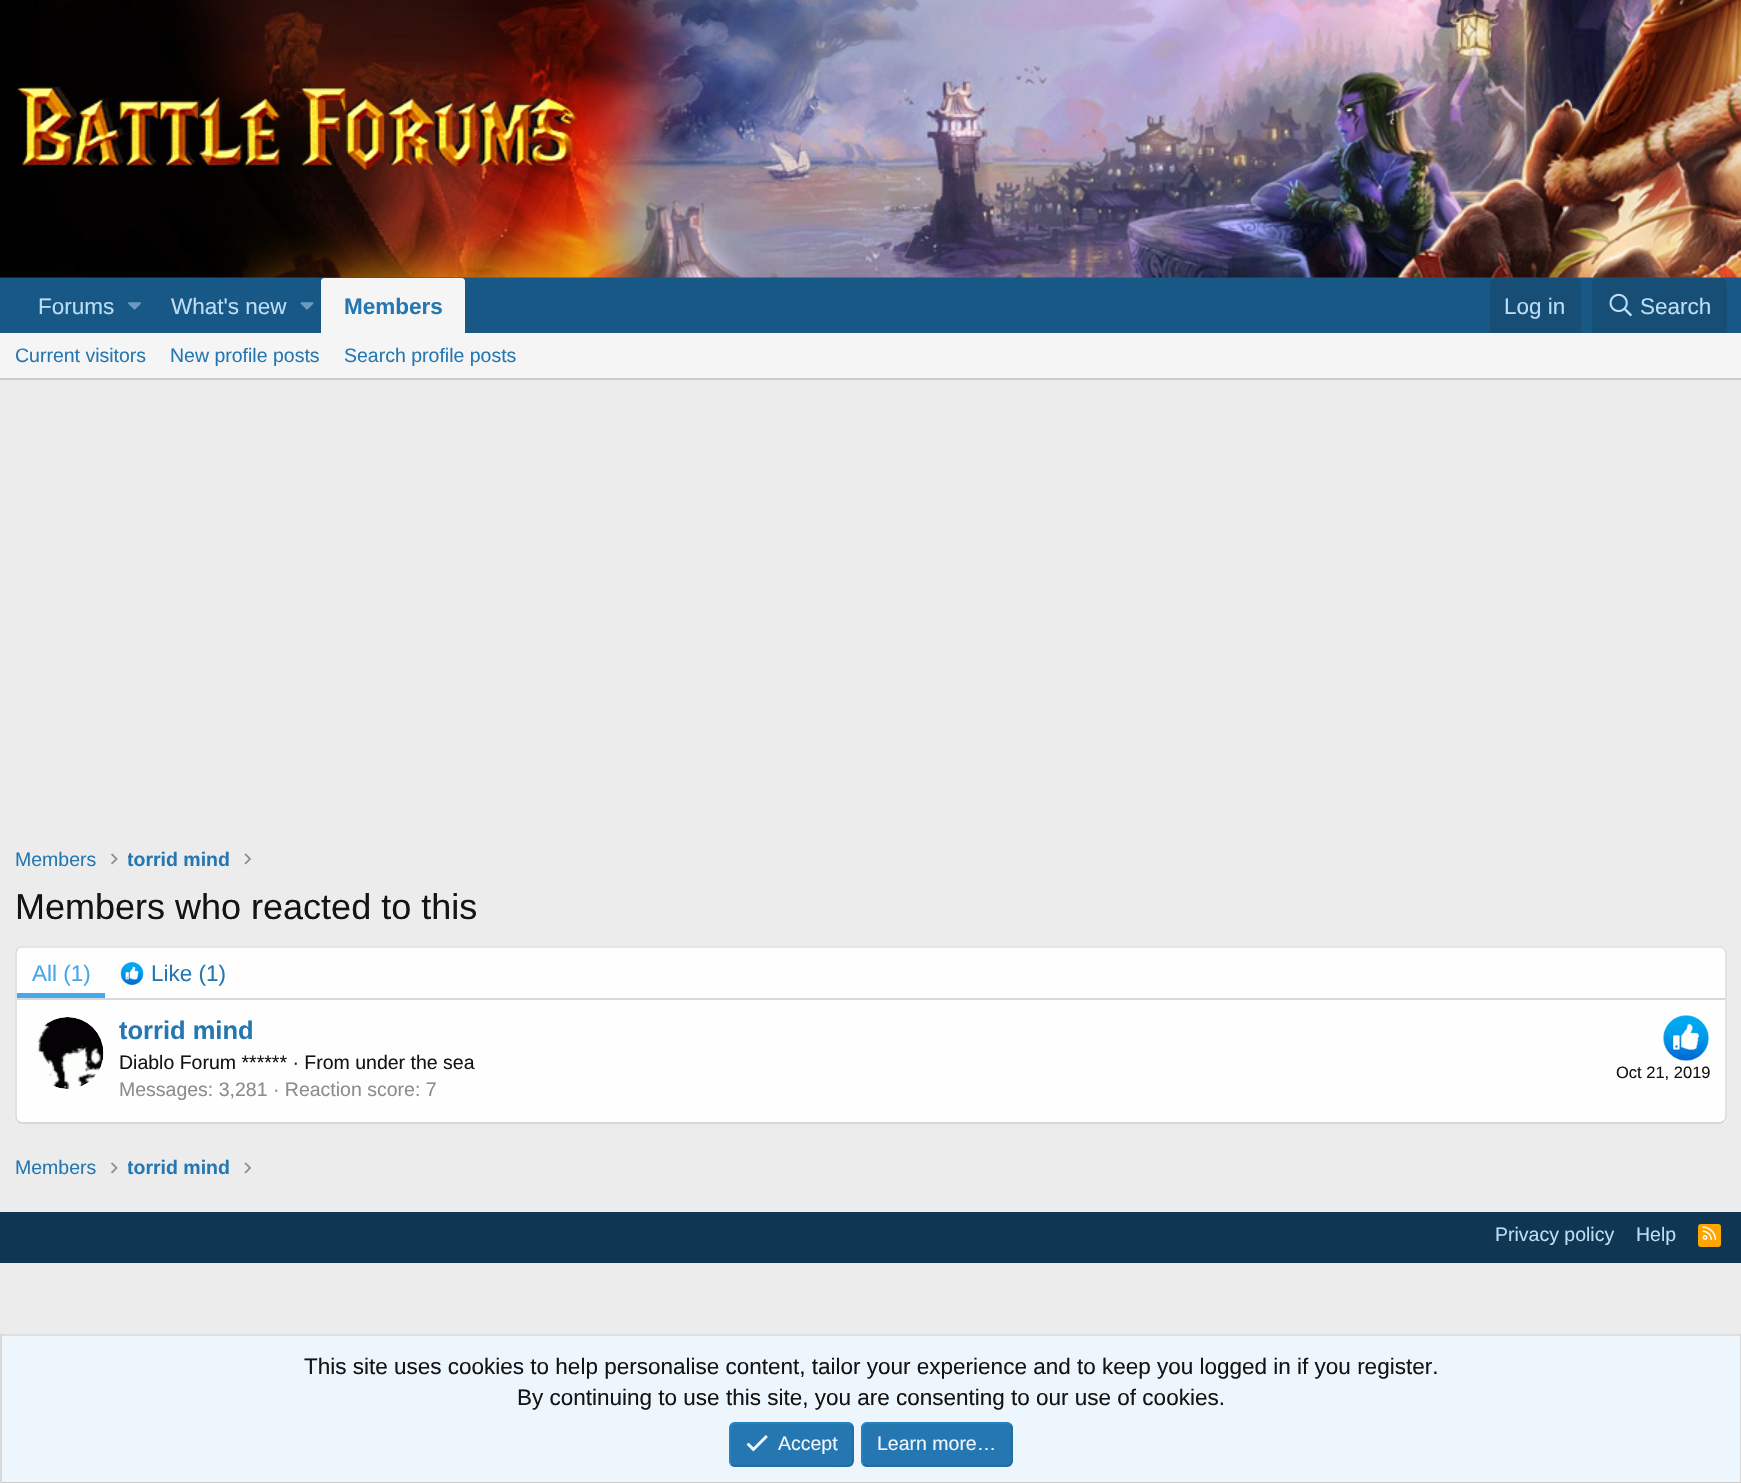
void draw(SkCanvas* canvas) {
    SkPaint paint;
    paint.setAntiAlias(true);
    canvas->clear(0xFFECECEC);
    paint.setColor(0xFF185886);
    canvas->drawRect(SkRect::MakeXYWH(0, 277, 1741, 56), paint);
    canvas->drawImageRect(SkImages::DeferredFromEncodedData(SkData::MakeFromFileName("img1.png")), SkRect::MakeXYWH(0, 0, 1741, 278), SkSamplingOptions());
    canvas->drawImageRect(SkImages::DeferredFromEncodedData(SkData::MakeFromFileName("img2.png")), SkRect::MakeXYWH(17, 86, 561, 84), SkSamplingOptions());
    SkFont font1(fontMgr->matchFamilyStyle("Liberation Sans", SkFontStyle::Normal()), 22.5f);
    font1.setSubpixel(true);
    paint.setColor(0xFFBCDEF5);
    canvas->drawString("Forums", 38, 314, font1, paint);
    canvas->drawImageRect(SkImages::DeferredFromEncodedData(SkData::MakeFromFileName("img3.png")), SkRect::MakeXYWH(128, 302, 13, 8), SkSamplingOptions());
    canvas->drawString("What's new", 171, 314, font1, paint);
    canvas->drawImageRect(SkImages::DeferredFromEncodedData(SkData::MakeFromFileName("img4.png")), SkRect::MakeXYWH(300, 302, 14, 8), SkSamplingOptions());
    paint.setColor(0xFFF5F5F5);
    canvas->drawPath(SkPathBuilder().moveTo(324, 278).lineTo(462, 278).cubicTo(463.5f, 278, 465, 279.5f, 465, 281).lineTo(465, 333).lineTo(321, 333).lineTo(321, 281).cubicTo(321, 279.5f, 322.5f, 278, 324, 278).close().detach(), paint);
    SkFont font2(fontMgr->matchFamilyStyle("Liberation Sans", SkFontStyle::Bold()), 22.5f);
    font2.setSubpixel(true);
    paint.setColor(0xFF2577B1);
    canvas->drawString("Members", 344, 314, font2, paint);
    paint.setColor(0xFF174E75);
    canvas->drawPath(SkPathBuilder().moveTo(1496, 278).lineTo(1575, 278).cubicTo(1578.5f, 278, 1581, 280.5f, 1581, 284).lineTo(1581, 333).lineTo(1490, 333).lineTo(1490, 284).cubicTo(1490, 280.5f, 1492.5f, 278, 1496, 278).close().detach(), paint);
    paint.setColor(0xFFBCDEF5);
    canvas->drawString("Log in", 1504, 314, font1, paint);
    paint.setColor(0xFF174E75);
    canvas->drawPath(SkPathBuilder().moveTo(1598, 278).lineTo(1721, 278).cubicTo(1724.5f, 278, 1727, 280.5f, 1727, 284).lineTo(1727, 333).lineTo(1592, 333).lineTo(1592, 284).cubicTo(1592, 280.5f, 1594.5f, 278, 1598, 278).close().detach(), paint);
    canvas->drawImageRect(SkImages::DeferredFromEncodedData(SkData::MakeFromFileName("img5.png")), SkRect::MakeXYWH(1609, 293, 23, 24), SkSamplingOptions());
    paint.setColor(0xFFBCDEF5);
    canvas->drawString("Search", 1640, 314, font1, paint);
    paint.setColor(0xFFF5F5F5);
    canvas->drawRect(SkRect::MakeXYWH(0, 333, 1741, 45), paint);
    paint.setColor(0xFFCBCBCB);
    canvas->drawRect(SkRect::MakeXYWH(0, 378, 1741, 2), paint);
    SkFont font3(fontMgr->matchFamilyStyle("Liberation Sans", SkFontStyle::Normal()), 19.5f);
    font3.setSubpixel(true);
    paint.setColor(0xFF2577B1);
    canvas->drawString("Current visitors", 15, 362, font3, paint);
    canvas->drawString("New profile posts", 170, 362, font3, paint);
    canvas->drawString("Search profile posts", 344, 362, font3, paint);
    canvas->drawString("Members", 15, 866, font3, paint);
    canvas->drawImageRect(SkImages::DeferredFromEncodedData(SkData::MakeFromFileName("img6.png")), SkRect::MakeXYWH(111, 853, 7, 12), SkSamplingOptions());
    canvas->save();
    canvas->clipRect(SkRect::MakeXYWH(128, 845, 102, 30));
    SkFont font4(fontMgr->matchFamilyStyle("Liberation Sans", SkFontStyle::Bold()), 19.5f);
    font4.setSubpixel(true);
    canvas->drawString("torrid mind", 127, 866, font4, paint);
    canvas->restore();
    canvas->drawImageRect(SkImages::DeferredFromEncodedData(SkData::MakeFromFileName("img7.png")), SkRect::MakeXYWH(244, 853, 7, 12), SkSamplingOptions());
    SkFont font5(fontMgr->matchFamilyStyle("Liberation Sans", SkFontStyle::Normal()), 36);
    font5.setSubpixel(true);
    paint.setColor(0xFF141414);
    canvas->drawString("Members who reacted to this", 15, 919, font5, paint);
    paint.setColor(0xFFFEFEFE);
    canvas->drawRoundRect(SkRect::MakeXYWH(15, 947, 1712, 177), 6, 6, paint);
    paint.setStyle(SkPaint::kStroke_Style);
    paint.setStrokeWidth(1.5f);
    paint.setColor(0xFFDFDFDF);
    canvas->drawPath(SkPathBuilder().moveTo(17.5f, 949).cubicTo(18.5f, 948, 19.5f, 947, 21, 947).lineTo(1720.5f, 947).cubicTo(1722, 947, 1723, 948, 1724, 949).detach(), paint);
    paint.setColor(0xFFD8D8D8);
    canvas->drawPath(SkPathBuilder().moveTo(1724, 949).cubicTo(1725, 950, 1726, 951, 1726, 952.5f).lineTo(1726, 1117.5f).cubicTo(1726, 1119, 1725, 1120, 1724, 1121).detach(), paint);
    paint.setColor(0xFFCBCBCB);
    canvas->drawPath(SkPathBuilder().moveTo(1724, 1121).cubicTo(1723, 1122, 1722, 1123, 1720.5f, 1123).lineTo(21, 1123).cubicTo(19.5f, 1123, 18.5f, 1122, 17.5f, 1121).detach(), paint);
    paint.setColor(0xFFD8D8D8);
    canvas->drawPath(SkPathBuilder().moveTo(17.5f, 1121).cubicTo(16.5f, 1120, 16, 1119, 16, 1117.5f).lineTo(16, 952.5f).cubicTo(16, 951, 16.5f, 950, 17.5f, 949).detach(), paint);
    paint.setStyle(SkPaint::kFill_Style);
    paint.setColor(0xFFFEFEFE);
    canvas->drawPath(SkPathBuilder().moveTo(22, 948).lineTo(1720, 948).cubicTo(1723, 948, 1725, 950, 1725, 953).lineTo(1725, 999).lineTo(17, 999).lineTo(17, 953).cubicTo(17, 950, 19, 948, 22, 948).close().detach(), paint);
    paint.setColor(0xFFD8D8D8);
    canvas->drawRect(SkRect::MakeXYWH(17, 998, 1708, 2), paint);
    paint.setColor(0xFF47A7EB);
    canvas->drawRect(SkRect::MakeXYWH(17, 993, 88, 5), paint);
    canvas->drawString("All (1)", 32, 981, font1, paint);
    canvas->drawImageRect(SkImages::DeferredFromEncodedData(SkData::MakeFromFileName("img8.png")), SkRect::MakeXYWH(120, 962, 24, 23), SkSamplingOptions());
    paint.setColor(0xFF2577B1);
    canvas->drawString("Like (1)", 151, 981, font1, paint);
    canvas->drawImageRect(SkImages::DeferredFromEncodedData(SkData::MakeFromFileName("img9.png")), SkRect::MakeXYWH(37, 1017, 67, 72), SkSamplingOptions());
    SkFont font6(fontMgr->matchFamilyStyle("Liberation Sans", SkFontStyle::Bold()), 25.5f);
    font6.setSubpixel(true);
    canvas->drawString("torrid mind", 119, 1039, font6, paint);
    paint.setColor(0xFF141414);
    canvas->drawString("Diablo Forum ****** · From under the sea", 119, 1069, font3, paint);
    canvas->drawImageRect(SkImages::DeferredFromEncodedData(SkData::MakeFromFileName("img10.png")), SkRect::MakeXYWH(1663, 1015, 46, 46), SkSamplingOptions());
    SkFont font7(fontMgr->matchFamilyStyle("Liberation Sans", SkFontStyle::Normal()), 16.5f);
    font7.setSubpixel(true);
    canvas->drawString("Oct 21, 2019", 1616, 1078, font7, paint);
    paint.setColor(0xFF8C8C8C);
    canvas->drawString("Messages: 3,281 · Reaction score: 7", 119, 1096, font3, paint);
    paint.setColor(0xFF2577B1);
    canvas->drawString("Members", 15, 1174, font3, paint);
    canvas->drawImageRect(SkImages::DeferredFromEncodedData(SkData::MakeFromFileName("img6.png")), SkRect::MakeXYWH(111, 1162, 7, 12), SkSamplingOptions());
    canvas->save();
    canvas->clipRect(SkRect::MakeXYWH(128, 1154, 102, 28));
    canvas->drawString("torrid mind", 127, 1174, font4, paint);
    canvas->restore();
    canvas->drawImageRect(SkImages::DeferredFromEncodedData(SkData::MakeFromFileName("img7.png")), SkRect::MakeXYWH(244, 1162, 7, 12), SkSamplingOptions());
    paint.setColor(0xFF0F3652);
    canvas->drawRect(SkRect::MakeXYWH(0, 1212, 1741, 51), paint);
    paint.setColor(0xFFBCDEF5);
    canvas->drawString("Privacy policy", 1495, 1241, font3, paint);
    canvas->drawString("Help", 1636, 1241, font3, paint);
    paint.setColor(0xFFFFA500);
    canvas->drawRoundRect(SkRect::MakeXYWH(1698, 1224, 23, 23), 3, 3, paint);
    canvas->drawImageRect(SkImages::DeferredFromEncodedData(SkData::MakeFromFileName("img11.png")), SkRect::MakeXYWH(1702, 1226, 15, 14), SkSamplingOptions());
    paint.setColor(0xFFEDF6FD);
    canvas->drawRect(SkRect::MakeXYWH(2, 1336, 1738, 146), paint);
    paint.setColor(0xFFDFDFDF);
    canvas->drawRect(SkRect::MakeXYWH(0, 1334, 1741, 2), paint);
    paint.setColor(0xFFD8D8D8);
    canvas->drawRect(SkRect::MakeXYWH(1740, 1334, 1, 149), paint);
    paint.setColor(0xFFCBCBCB);
    canvas->drawRect(SkRect::MakeXYWH(0, 1482, 1741, 1), paint);
    paint.setColor(0xFFD8D8D8);
    canvas->drawRect(SkRect::MakeXYWH(0, 1334, 2, 149), paint);
    paint.setColor(0xFF141414);
    canvas->drawString("This site uses cookies to help personalise content, tailor your experience and to keep you logged in if you register.", 304, 1374, font1, paint);
    canvas->drawString("By continuing to use this site, you are consenting to our use of cookies.", 517, 1405, font1, paint);
    paint.setColor(0xFF2577B1);
    canvas->drawRoundRect(SkRect::MakeXYWH(729, 1422, 125, 45), 6, 6, paint);
    paint.setStyle(SkPaint::kStroke_Style);
    paint.setColor(0xFF21699C);
    canvas->drawPath(SkPathBuilder().moveTo(851, 1424.5f).cubicTo(853.5f, 1426.5f, 853, 1430.5f, 853, 1433.5f).lineTo(853, 1444.5f).cubicTo(853, 1470, 856, 1466, 829, 1466).lineTo(735, 1466).cubicTo(733.5f, 1466, 732.5f, 1465.5f, 731.5f, 1464.5f).detach(), paint);
    paint.setColor(0xFF2985C6);
    canvas->drawPath(SkPathBuilder().moveTo(731.5f, 1464.5f).cubicTo(729, 1462.5f, 730, 1458.5f, 730, 1455.5f).lineTo(730, 1444.5f).cubicTo(730, 1419, 726.5f, 1423, 754, 1423).lineTo(847.5f, 1423).cubicTo(849, 1423, 850, 1423.5f, 851, 1424.5f).detach(), paint);
    canvas->drawImageRect(SkImages::DeferredFromEncodedData(SkData::MakeFromFileName("img12.png")), SkRect::MakeXYWH(746, 1435, 22, 17), SkSamplingOptions());
    paint.setStyle(SkPaint::kFill_Style);
    paint.setColor(0xFFEDF6FD);
    canvas->drawString("Accept", 778, 1450, font3, paint);
    paint.setColor(0xFF2577B1);
    canvas->drawRoundRect(SkRect::MakeXYWH(861, 1422, 152, 45), 6, 6, paint);
    paint.setStyle(SkPaint::kStroke_Style);
    paint.setColor(0xFF21699C);
    canvas->drawPath(SkPathBuilder().moveTo(1010, 1424.5f).cubicTo(1011, 1425.5f, 1012, 1426.5f, 1012, 1428).lineTo(1012, 1461).cubicTo(1012, 1462.5f, 1011, 1463.5f, 1010, 1464.5f).cubicTo(1009, 1465.5f, 1008, 1466, 1006.5f, 1466).lineTo(867, 1466).cubicTo(865.5f, 1466, 864.5f, 1465.5f, 863.5f, 1464.5f).detach(), paint);
    paint.setColor(0xFF2985C6);
    canvas->drawPath(SkPathBuilder().moveTo(863.5f, 1464.5f).cubicTo(862.5f, 1463.5f, 862, 1462.5f, 862, 1461).lineTo(862, 1428).cubicTo(862, 1426.5f, 862.5f, 1425.5f, 863.5f, 1424.5f).cubicTo(864.5f, 1423.5f, 865.5f, 1423, 867, 1423).lineTo(1006.5f, 1423).cubicTo(1008, 1423, 1009, 1423.5f, 1010, 1424.5f).detach(), paint);
    paint.setStyle(SkPaint::kFill_Style);
    paint.setColor(0xFFEDF6FD);
    canvas->drawString("Learn more…", 877, 1450, font3, paint);
}
